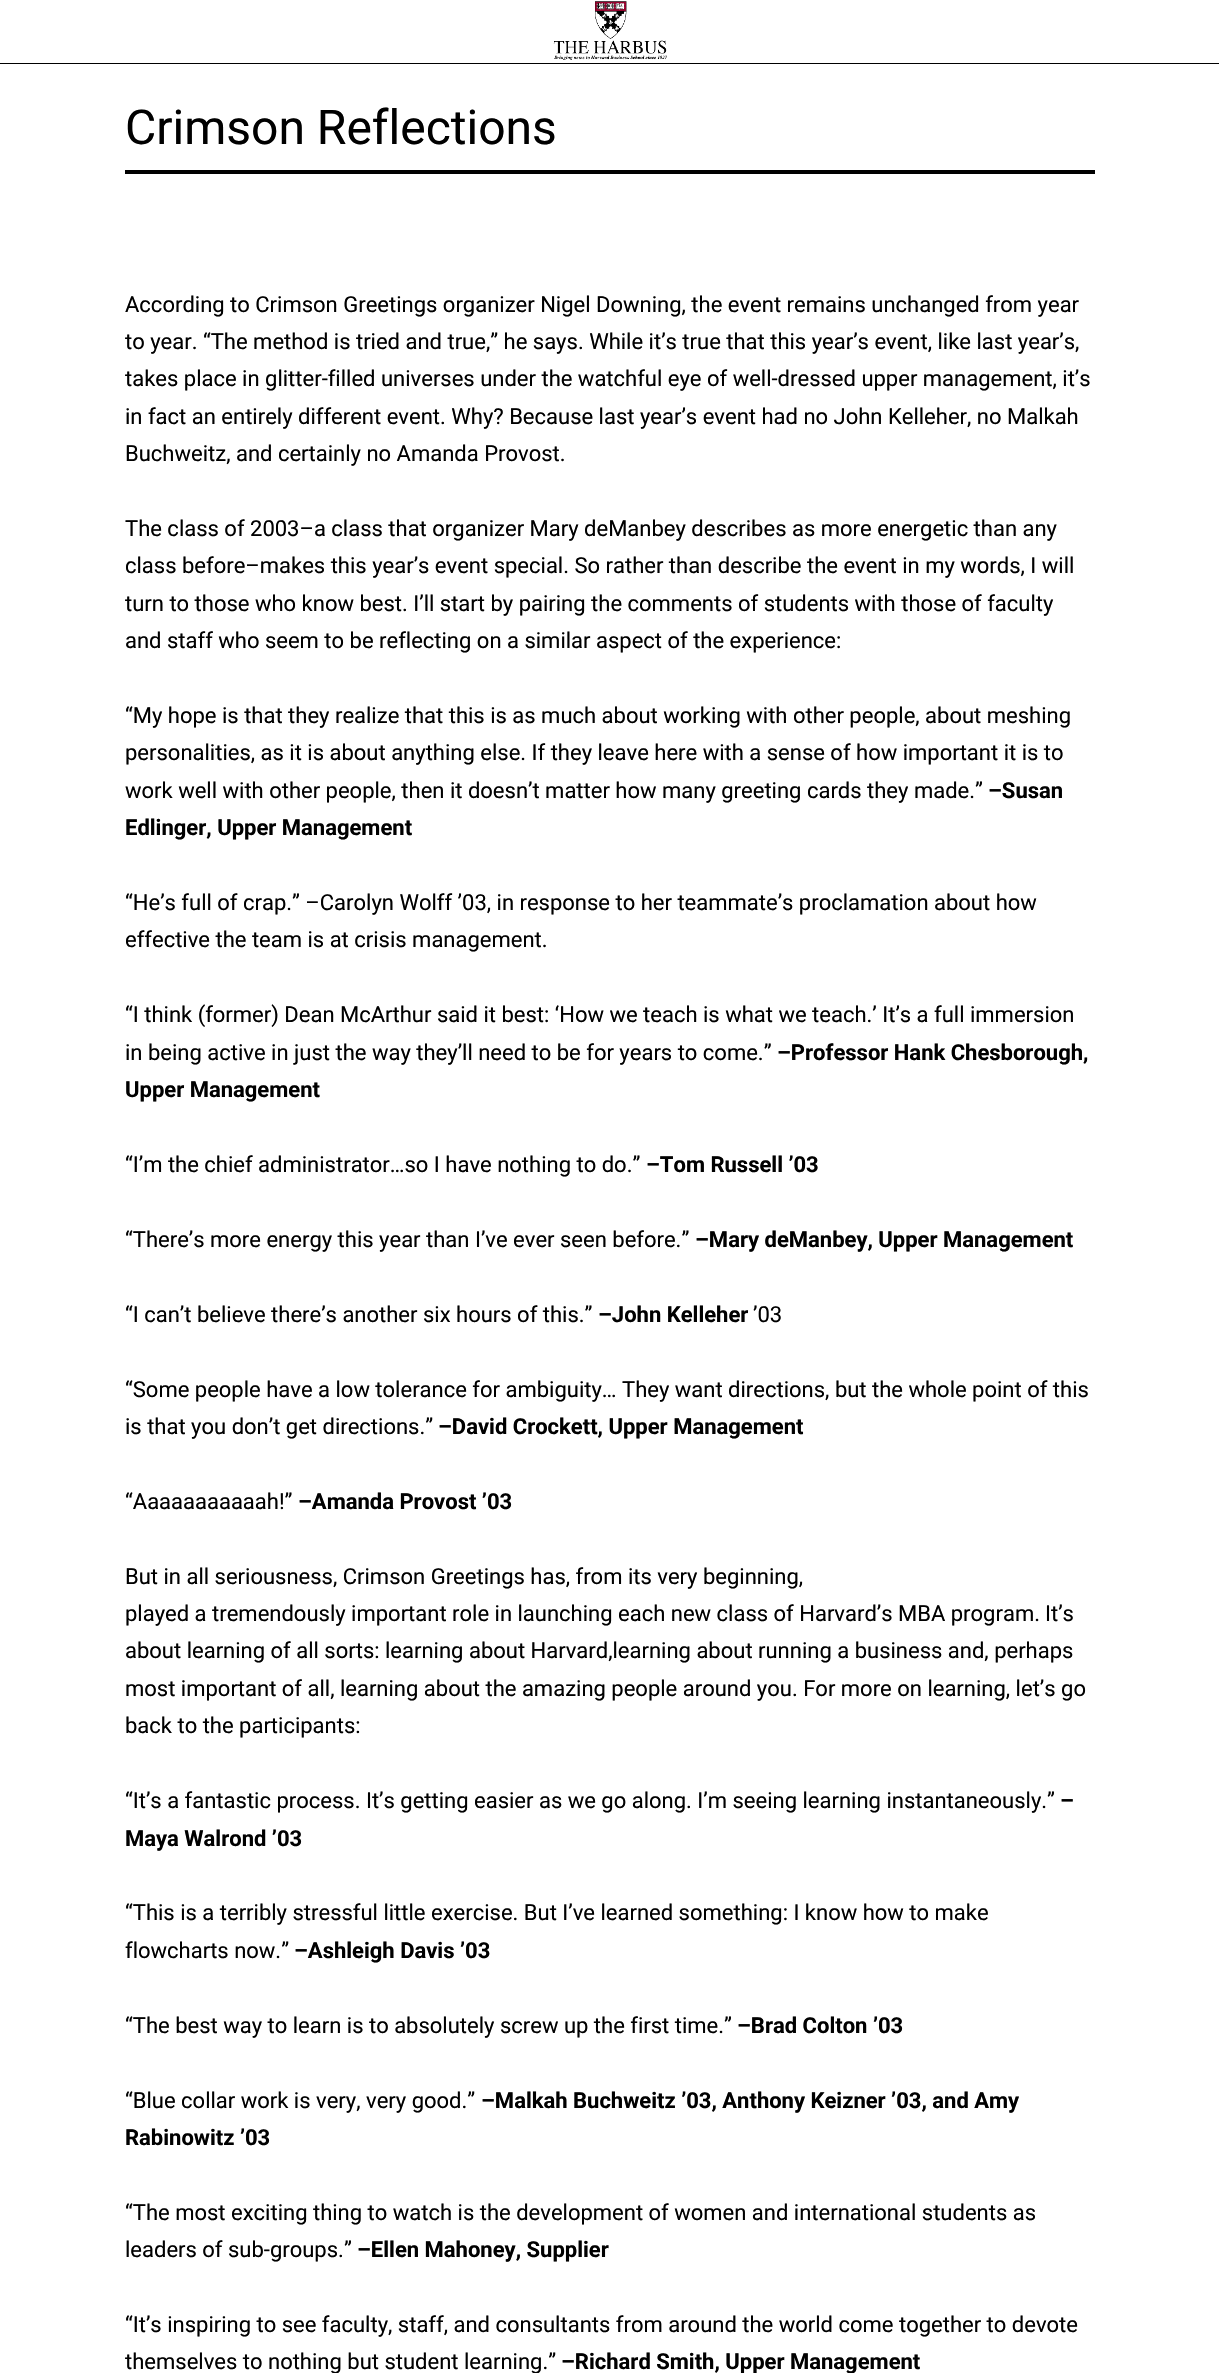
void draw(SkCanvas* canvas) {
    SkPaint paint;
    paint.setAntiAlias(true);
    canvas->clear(0xFFFFFFFF);
    canvas->drawImageRect(SkImages::DeferredFromEncodedData(SkData::MakeFromFileName("img1.png")), SkRect::MakeXYWH(553, 1, 114, 59), SkSamplingOptions());
    paint.setColor(0xFF000000);
    canvas->drawRect(SkRect::MakeXYWH(0, 63, 1219, 1), paint);
    canvas->drawRect(SkRect::MakeXYWH(125, 170, 970, 4), paint);
    SkFont font1(fontMgr->matchFamilyStyle("Roboto", SkFontStyle::Normal()), 48);
    font1.setSubpixel(true);
    canvas->drawString("Crimson Reflections", 125, 144, font1, paint);
    SkFont font2(fontMgr->matchFamilyStyle("Roboto", SkFontStyle::Normal()), 22);
    font2.setSubpixel(true);
    canvas->drawString("According to Crimson Greetings organizer Nigel Downing, the event remains unchanged from year", 125, 312, font2, paint);
    canvas->drawString("to year. “The method is tried and true,” he says. While it’s true that this year’s event, like last year’s,", 125, 349, font2, paint);
    canvas->drawString("takes place in glitter-filled universes under the watchful eye of well-dressed upper management, it’s", 125, 386, font2, paint);
    canvas->drawString("in fact an entirely different event. Why? Because last year’s event had no John Kelleher, no Malkah", 125, 424, font2, paint);
    canvas->drawString("Buchweitz, and certainly no Amanda Provost.", 125, 461, font2, paint);
    canvas->drawString("The class of 2003–a class that organizer Mary deManbey describes as more energetic than any", 125, 536, font2, paint);
    canvas->drawString("class before–makes this year’s event special. So rather than describe the event in my words, I will", 125, 573, font2, paint);
    canvas->drawString("turn to those who know best. I’ll start by pairing the comments of students with those of faculty", 125, 611, font2, paint);
    canvas->drawString("and staff who seem to be reflecting on a similar aspect of the experience:", 125, 648, font2, paint);
    canvas->drawString("“My hope is that they realize that this is as much about working with other people, about meshing", 125, 723, font2, paint);
    canvas->drawString("personalities, as it is about anything else. If they leave here with a sense of how important it is to", 125, 760, font2, paint);
    canvas->drawString("work well with other people, then it doesn’t matter how many greeting cards they made.”", 125, 798, font2, paint);
    SkFont font3(fontMgr->matchFamilyStyle("Roboto", SkFontStyle::Bold()), 22);
    font3.setSubpixel(true);
    canvas->drawString("–Susan", 988, 798, font3, paint);
    canvas->drawString("Edlinger, Upper Management", 125, 835, font3, paint);
    canvas->drawString("“He’s full of crap.” –Carolyn Wolff ’03, in response to her teammate’s proclamation about how", 125, 910, font2, paint);
    canvas->drawString("effective the team is at crisis management.", 125, 947, font2, paint);
    canvas->drawString("“I think (former) Dean McArthur said it best: ‘How we teach is what we teach.’ It’s a full immersion", 125, 1022, font2, paint);
    canvas->drawString("in being active in just the way they’ll need to be for years to come.”", 125, 1060, font2, paint);
    canvas->drawString("–Professor Hank Chesborough,", 777, 1060, font3, paint);
    canvas->drawString("Upper Management", 125, 1097, font3, paint);
    canvas->drawString("“I’m the chief administrator…so I have nothing to do.”", 125, 1172, font2, paint);
    canvas->drawString("–Tom Russell ’03", 646, 1172, font3, paint);
    canvas->drawString("“There’s more energy this year than I’ve ever seen before.”", 125, 1247, font2, paint);
    canvas->drawString("–Mary deManbey, Upper Management", 695, 1247, font3, paint);
    canvas->drawString("“I can’t believe there’s another six hours of this.”", 125, 1322, font2, paint);
    canvas->drawString("–John Kelleher", 598, 1322, font3, paint);
    canvas->drawString("’03", 753, 1322, font2, paint);
    canvas->drawString("“Some people have a low tolerance for ambiguity… They want directions, but the whole point of this", 125, 1397, font2, paint);
    canvas->drawString("is that you don’t get directions.”", 125, 1434, font2, paint);
    canvas->drawString("–David Crockett, Upper Management", 438, 1434, font3, paint);
    canvas->drawString("“Aaaaaaaaaaah!”", 125, 1509, font2, paint);
    canvas->drawString("–Amanda Provost ’03", 298, 1509, font3, paint);
    canvas->drawString("But in all seriousness, Crimson Greetings has, from its very beginning,", 125, 1584, font2, paint);
    canvas->drawString("played a tremendously important role in launching each new class of Harvard’s MBA program.", 125, 1621, font2, paint);
    canvas->drawString("It’s", 1045, 1621, font2, paint);
    canvas->drawString("about learning of all sorts: learning about Harvard,learning about running a business and, perhaps", 125, 1658, font2, paint);
    canvas->drawString("most important of all, learning about the amazing people around you. For more on learning, let’s go", 125, 1696, font2, paint);
    canvas->drawString("back to the participants:", 125, 1733, font2, paint);
    canvas->drawString("“It’s a fantastic process. It’s getting easier as we go along. I’m seeing learning instantaneously.”", 125, 1808, font2, paint);
    canvas->drawString("–", 1060, 1808, font3, paint);
    canvas->drawString("Maya Walrond ’03", 125, 1846, font3, paint);
    canvas->drawString("“This is a terribly stressful little exercise. But I’ve learned something: I know how to make", 125, 1920, font2, paint);
    canvas->drawString("flowcharts now.”", 125, 1958, font2, paint);
    canvas->drawString("–Ashleigh Davis ’03", 294, 1958, font3, paint);
    canvas->drawString("“The best way to learn is to absolutely screw up the first time.”", 125, 2033, font2, paint);
    canvas->drawString("–Brad Colton ’03", 737, 2033, font3, paint);
    canvas->drawString("“Blue collar work is very, very good.”", 125, 2108, font2, paint);
    canvas->drawString("–Malkah Buchweitz ’03, Anthony Keizner ’03, and Amy", 481, 2108, font3, paint);
    canvas->drawString("Rabinowitz ’03", 125, 2145, font3, paint);
    canvas->drawString("“The most exciting thing to watch is the development of women and international students as", 125, 2220, font2, paint);
    canvas->drawString("leaders of sub-groups.”", 125, 2257, font2, paint);
    canvas->drawString("–Ellen Mahoney, Supplier", 357, 2257, font3, paint);
    canvas->drawString("“It’s inspiring to see faculty, staff, and consultants from around the world come together to devote", 125, 2332, font2, paint);
    canvas->drawString("themselves to nothing but student learning.”", 125, 2369, font2, paint);
    canvas->drawString("–Richard Smith, Upper Management", 561, 2369, font3, paint);
}
